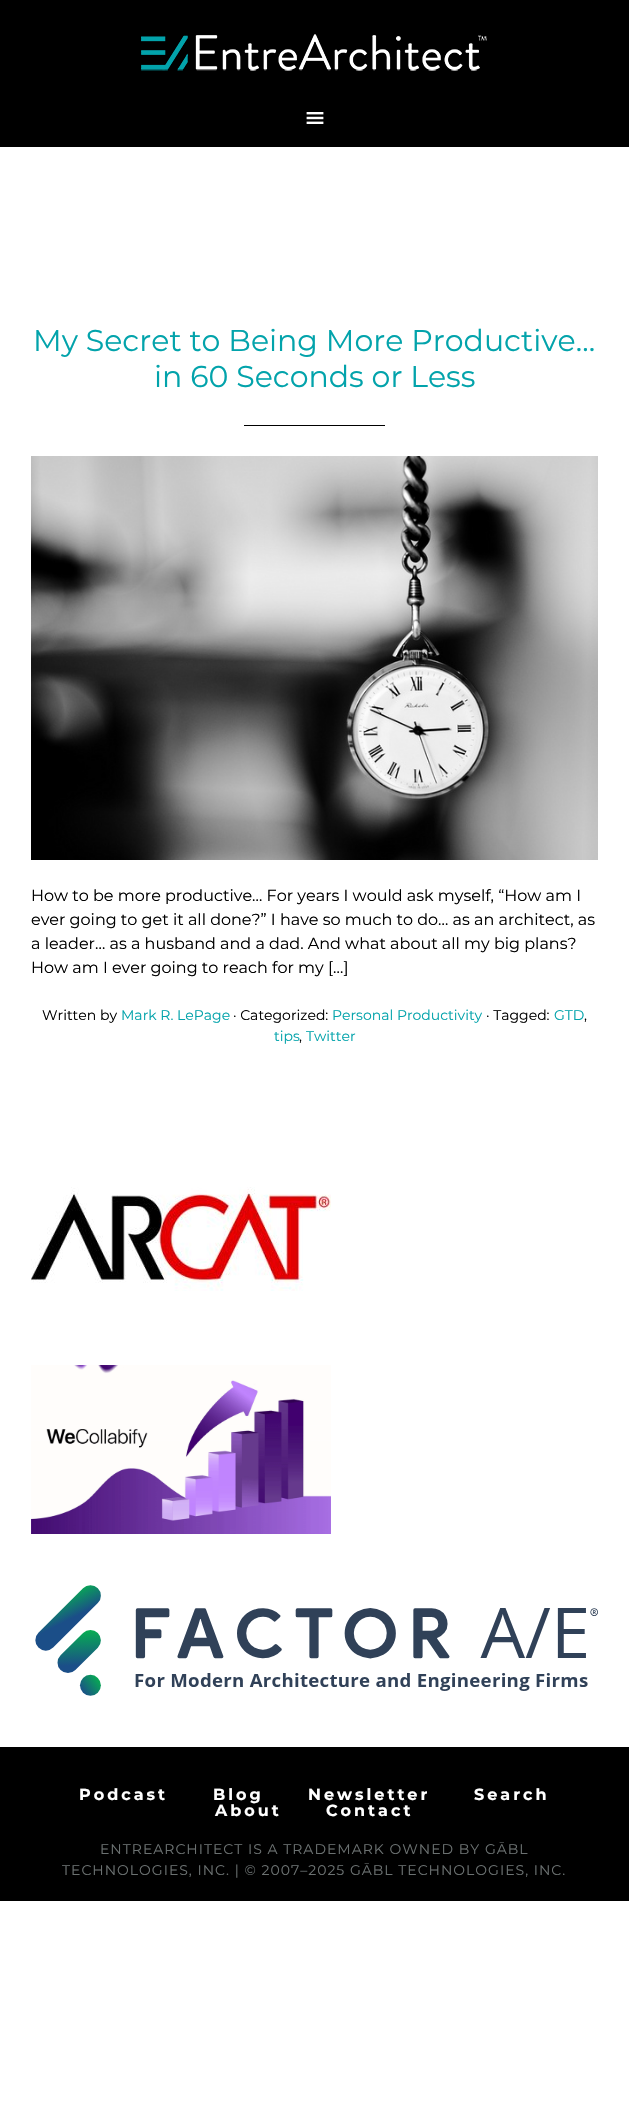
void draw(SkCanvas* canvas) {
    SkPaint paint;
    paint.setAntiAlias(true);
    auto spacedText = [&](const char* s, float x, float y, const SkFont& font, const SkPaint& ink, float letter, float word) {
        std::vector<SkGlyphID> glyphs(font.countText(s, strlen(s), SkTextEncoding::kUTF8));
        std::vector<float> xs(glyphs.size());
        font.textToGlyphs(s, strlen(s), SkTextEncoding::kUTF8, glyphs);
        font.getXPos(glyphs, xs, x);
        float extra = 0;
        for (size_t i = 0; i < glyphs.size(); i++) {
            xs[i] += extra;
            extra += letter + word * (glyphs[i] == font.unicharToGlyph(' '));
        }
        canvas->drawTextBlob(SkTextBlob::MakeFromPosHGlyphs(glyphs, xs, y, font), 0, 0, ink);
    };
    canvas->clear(0xFFFFFFFF);
    paint.setColor(0xFF000000);
    canvas->drawRect(SkRect::MakeXYWH(0, 0, 629, 147), paint);
    canvas->drawImageRect(SkImages::DeferredFromEncodedData(SkData::MakeFromFileName("img1.png")), SkRect::MakeXYWH(141, 34, 346, 37), SkSamplingOptions());
    canvas->drawImageRect(SkImages::DeferredFromEncodedData(SkData::MakeFromFileName("img2.png")), SkRect::MakeXYWH(306, 112, 18, 12), SkSamplingOptions());
    SkFont font1(fontMgr->matchFamilyStyle("Montserrat", SkFontStyle::Normal()), 30);
    font1.setSubpixel(true);
    paint.setColor(0xFF02A3AB);
    canvas->drawString("My Secret to Being More Productive…", 33, 351, font1, paint);
    canvas->drawString("in 60 Seconds or Less", 154, 387, font1, paint);
    paint.setColor(0xFF000000);
    canvas->drawRect(SkRect::MakeXYWH(244, 425, 141, 1), paint);
    canvas->drawImageRect(SkImages::DeferredFromEncodedData(SkData::MakeFromFileName("img3.png")), SkRect::MakeXYWH(31, 456, 567, 404), SkSamplingOptions());
    SkFont font2(fontMgr->matchFamilyStyle("Montserrat", SkFontStyle::Normal()), 16);
    font2.setSubpixel(true);
    canvas->drawString("How to be more productive… For years I would ask myself, “How am I", 31, 901, font2, paint);
    canvas->drawString("ever going to get it all done?” I have so much to do… as an architect, as", 31, 925, font2, paint);
    canvas->drawString("a leader… as a husband and a dad. And what about all my big plans?", 31, 949, font2, paint);
    canvas->drawString("How am I ever going to reach for my […]", 31, 973, font2, paint);
    SkFont font3(fontMgr->matchFamilyStyle("Montserrat", SkFontStyle::Normal()), 14);
    font3.setSubpixel(true);
    canvas->drawString("Written by", 42, 1020, font3, paint);
    paint.setColor(0xFF02A3AB);
    canvas->drawString("Mark R. LePage", 121, 1020, font3, paint);
    paint.setColor(0xFF000000);
    canvas->drawString("· Categorized:", 233, 1020, font3, paint);
    paint.setColor(0xFF02A3AB);
    canvas->drawString("Personal Productivity", 332, 1020, font3, paint);
    paint.setColor(0xFF000000);
    canvas->drawString("· Tagged:", 486, 1020, font3, paint);
    paint.setColor(0xFF02A3AB);
    canvas->drawString("GTD", 554, 1020, font3, paint);
    paint.setColor(0xFF000000);
    canvas->drawString(",", 584, 1020, font3, paint);
    paint.setColor(0xFF02A3AB);
    canvas->drawString("tips", 274, 1041, font3, paint);
    paint.setColor(0xFF000000);
    canvas->drawString(",", 299, 1041, font3, paint);
    paint.setColor(0xFF02A3AB);
    canvas->drawString("Twitter", 306, 1041, font3, paint);
    canvas->drawImageRect(SkImages::DeferredFromEncodedData(SkData::MakeFromFileName("img4.png")), SkRect::MakeXYWH(31, 1187, 300, 104), SkSamplingOptions());
    canvas->drawImageRect(SkImages::DeferredFromEncodedData(SkData::MakeFromFileName("img5.png")), SkRect::MakeXYWH(31, 1365, 300, 169), SkSamplingOptions());
    canvas->drawImageRect(SkImages::DeferredFromEncodedData(SkData::MakeFromFileName("img6.png")), SkRect::MakeXYWH(35, 1585, 563, 111), SkSamplingOptions());
    paint.setColor(0xFF000000);
    canvas->drawRect(SkRect::MakeXYWH(0, 1747, 629, 154), paint);
    SkFont font4(fontMgr->matchFamilyStyle("Montserrat", SkFontStyle::Bold()), 16);
    font4.setSubpixel(true);
    paint.setColor(0xFFFFFFFF);
    spacedText("Podcast", 79, 1800, font4, paint, 3, 0);
    spacedText("Blog", 213, 1800, font4, paint, 3, 0);
    spacedText("Newsletter", 308, 1800, font4, paint, 3, 0);
    spacedText("Search", 474, 1800, font4, paint, 3, 0);
    spacedText("About", 215, 1816, font4, paint, 3, 0);
    spacedText("Contact", 326, 1816, font4, paint, 3, 0);
    paint.setColor(0xFF6B7171);
    spacedText("ENTREARCHITECT IS A TRADEMARK OWNED BY GĀBL", 100, 1854, font3, paint, 1, 0);
    spacedText("TECHNOLOGIES, INC. | © 2007–2025 GĀBL TECHNOLOGIES, INC.", 62, 1875, font3, paint, 1, 0);
}
